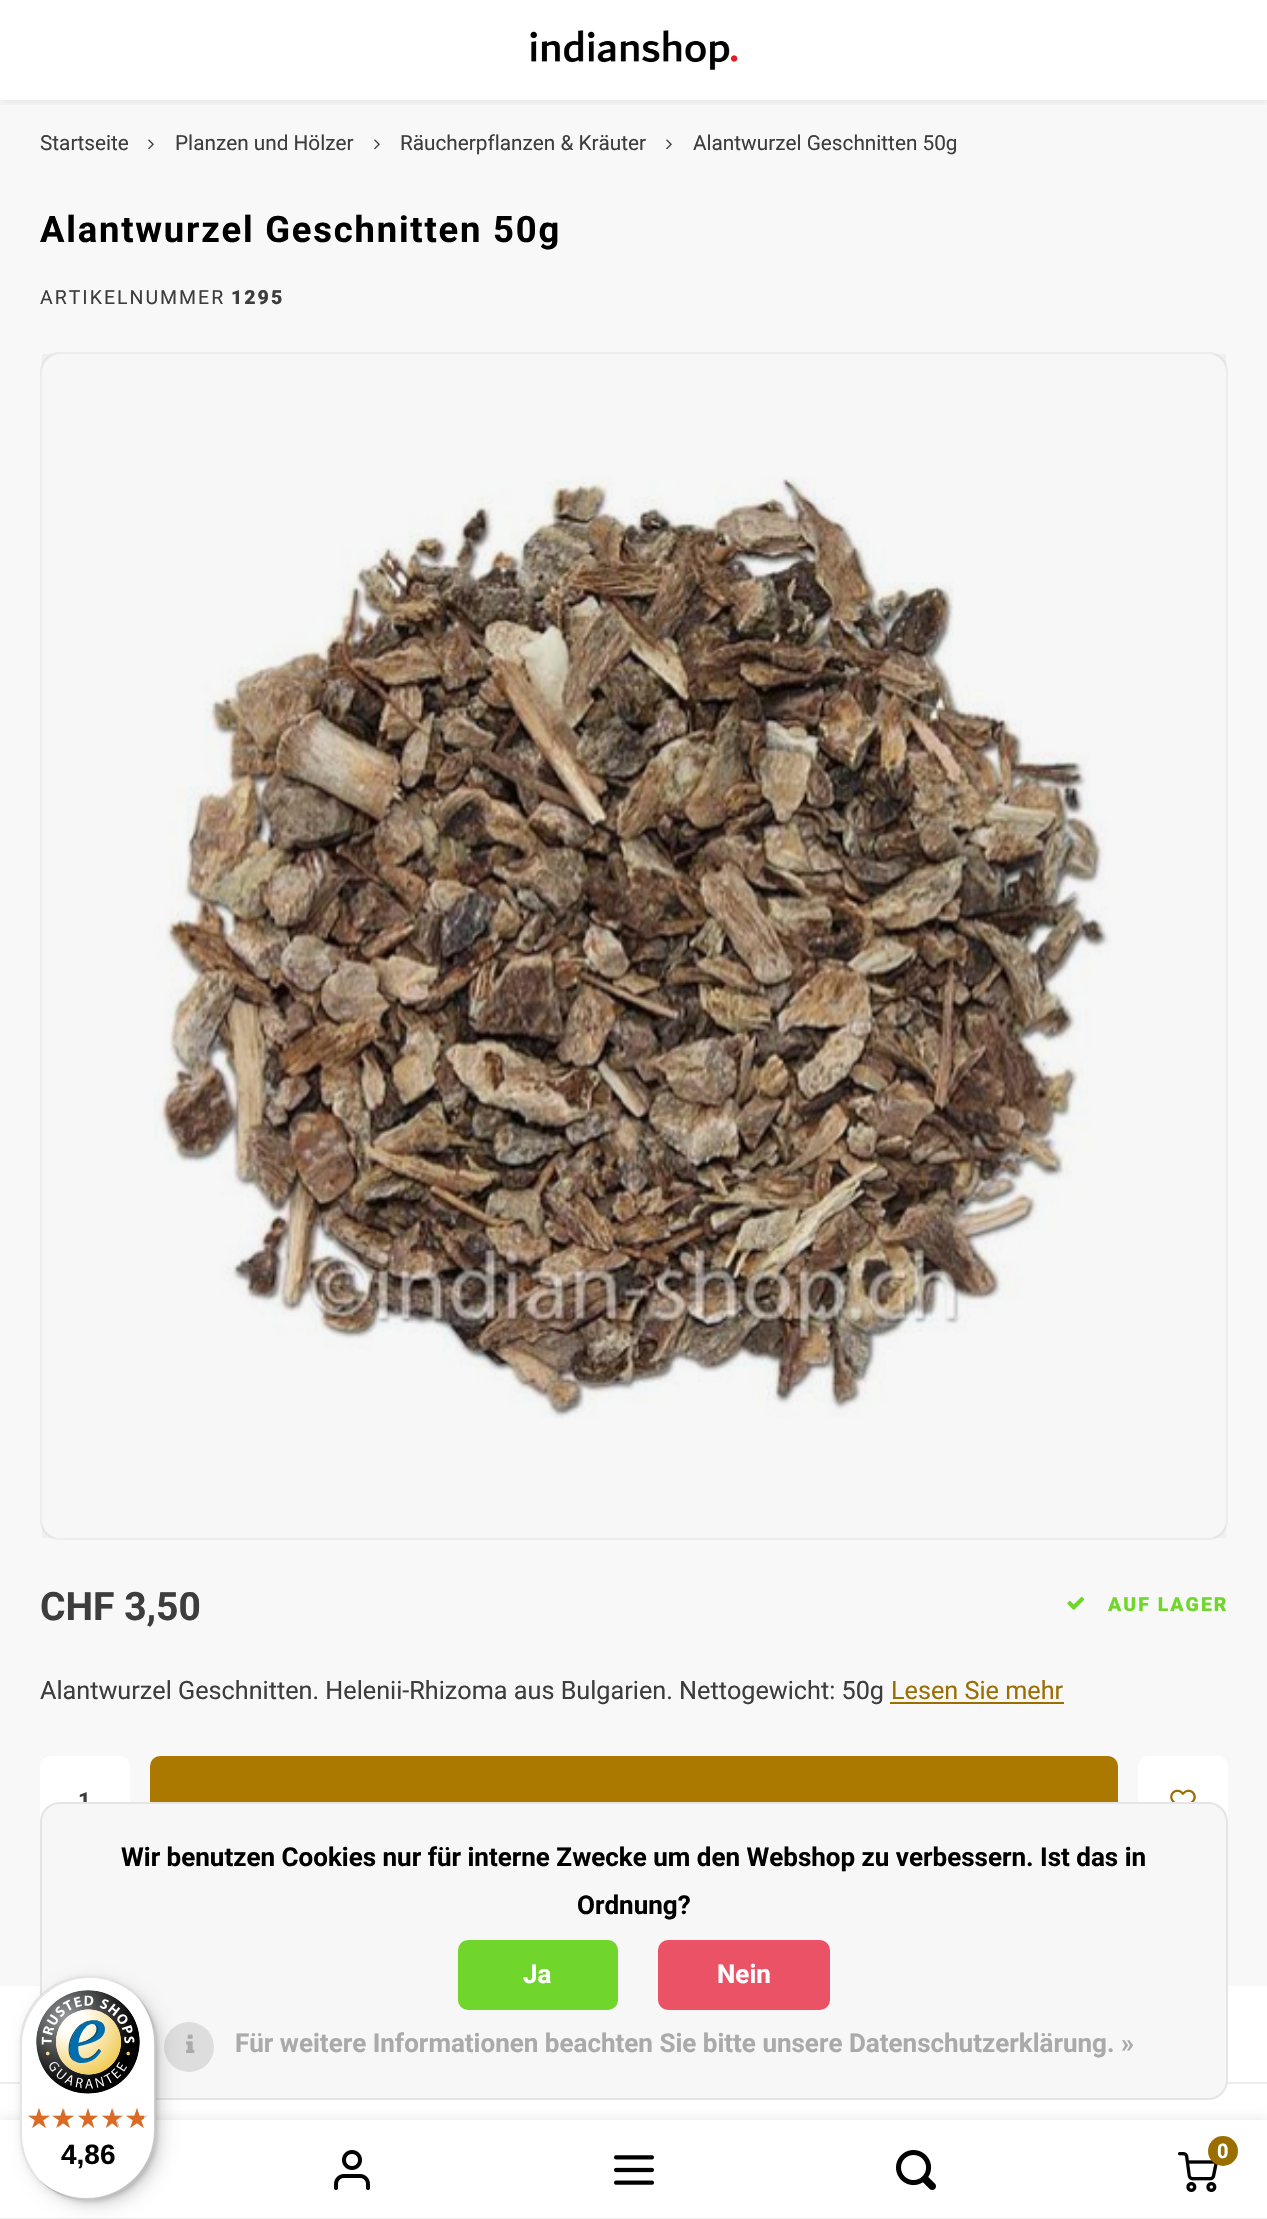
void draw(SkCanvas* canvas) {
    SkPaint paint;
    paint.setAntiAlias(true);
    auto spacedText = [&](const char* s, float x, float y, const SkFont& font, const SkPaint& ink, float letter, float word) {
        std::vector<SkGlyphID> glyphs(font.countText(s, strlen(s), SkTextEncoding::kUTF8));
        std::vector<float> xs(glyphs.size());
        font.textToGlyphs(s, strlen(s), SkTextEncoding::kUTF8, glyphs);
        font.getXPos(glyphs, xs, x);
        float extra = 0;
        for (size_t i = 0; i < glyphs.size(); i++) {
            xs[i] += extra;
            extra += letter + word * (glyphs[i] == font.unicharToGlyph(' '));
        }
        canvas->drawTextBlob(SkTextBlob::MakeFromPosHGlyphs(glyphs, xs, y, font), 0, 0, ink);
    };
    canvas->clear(0xFFFFFFFF);
    paint.setColor(0xFFF8F8F8);
    canvas->drawRect(SkRect::MakeXYWH(0, 100, 1267, 1886), paint);
    canvas->save();
    canvas->clipRect(SkRect::MakeXYWH(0, 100, 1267, 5));
    paint.setColor(0x14000000);
    paint.setMaskFilter(SkMaskFilter::MakeBlur(kNormal_SkBlurStyle, 4));
    canvas->drawRect(SkRect::MakeXYWH(0, 2, 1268, 100), paint);
    paint.setMaskFilter(nullptr);
    canvas->restore();
    canvas->drawImageRect(SkImages::DeferredFromEncodedData(SkData::MakeFromFileName("img1.png")), SkRect::MakeXYWH(530, 30, 208, 40), SkSamplingOptions());
    SkFont font1(fontMgr->matchFamilyStyle("Roboto", SkFontStyle::Normal()), 20.75f);
    font1.setSubpixel(true);
    paint.setColor(0xFF3D3D3D);
    canvas->drawString("Startseite", 40, 150, font1, paint);
    canvas->drawImageRect(SkImages::DeferredFromEncodedData(SkData::MakeFromFileName("img2.png")), SkRect::MakeXYWH(148, 139, 6, 11), SkSamplingOptions());
    canvas->drawString("Planzen und Hölzer", 175, 150, font1, paint);
    canvas->drawImageRect(SkImages::DeferredFromEncodedData(SkData::MakeFromFileName("img2.png")), SkRect::MakeXYWH(374, 139, 6, 11), SkSamplingOptions());
    canvas->drawString("Räucherpflanzen & Kräuter", 400, 150, font1, paint);
    canvas->drawImageRect(SkImages::DeferredFromEncodedData(SkData::MakeFromFileName("img2.png")), SkRect::MakeXYWH(666, 139, 6, 11), SkSamplingOptions());
    canvas->drawString("Alantwurzel Geschnitten 50g", 693, 150, font1, paint);
    SkFont font2(fontMgr->matchFamilyStyle("Roboto", SkFontStyle::Bold()), 36.4f);
    font2.setSubpixel(true);
    paint.setColor(0xFF000000);
    spacedText("Alantwurzel Geschnitten 50g", 40, 242, font2, paint, 1.8f, 0);
    SkFont font3(fontMgr->matchFamilyStyle("Roboto", SkFontStyle::Normal()), 19.5f);
    font3.setSubpixel(true);
    paint.setColor(0xFF3D3D3D);
    spacedText("ARTIKELNUMMER", 40, 304, font3, paint, 2, 0);
    SkFont font4(fontMgr->matchFamilyStyle("Roboto", SkFontStyle(900, SkFontStyle::kNormal_Width, SkFontStyle::kUpright_Slant)), 19.5f);
    font4.setSubpixel(true);
    spacedText("1295", 231, 304, font4, paint, 2, 0);
    paint.setColor(0xFFFFFFFF);
    canvas->drawRoundRect(SkRect::MakeXYWH(40, 352, 1188, 1188), 20, 20, paint);
    paint.setStyle(SkPaint::kStroke_Style);
    paint.setStrokeWidth(2);
    paint.setColor(0x12000000);
    canvas->drawRoundRect(SkRect::MakeXYWH(41, 353, 1186, 1186), 19, 19, paint);
    canvas->drawImageRect(SkImages::DeferredFromEncodedData(SkData::MakeFromFileName("img3.png")), SkRect::MakeXYWH(153, 476, 958, 943), SkSamplingOptions());
    paint.setStyle(SkPaint::kFill_Style);
    paint.setColor(0x08000000);
    canvas->drawRect(SkRect::MakeXYWH(42, 354, 1184, 1184), paint);
    SkFont font5(fontMgr->matchFamilyStyle("Roboto", SkFontStyle::Bold()), 39);
    font5.setSubpixel(true);
    paint.setColor(0xFF3D3D3D);
    canvas->drawString("CHF 3,50", 40, 1620, font5, paint);
    canvas->drawImageRect(SkImages::DeferredFromEncodedData(SkData::MakeFromFileName("img4.png")), SkRect::MakeXYWH(1067, 1596, 18, 14), SkSamplingOptions());
    paint.setColor(0xFF71D62B);
    spacedText("AUF LAGER", 1108, 1611, font4, paint, 2, 0);
    SkFont font6(fontMgr->matchFamilyStyle("Roboto", SkFontStyle::Normal()), 25.2f);
    font6.setSubpixel(true);
    paint.setColor(0xFF3D3D3D);
    canvas->drawString("Alantwurzel Geschnitten. Helenii-Rhizoma aus Bulgarien. Nettogewicht: 50g", 40, 1699, font6, paint);
    paint.setColor(0xFF9B6E02);
    canvas->drawString("Lesen Sie mehr", 891, 1699, font6, paint);
    canvas->drawRect(SkRect::MakeXYWH(890, 1702, 174, 2), paint);
    paint.setColor(0xFFFFFFFF);
    canvas->drawRoundRect(SkRect::MakeXYWH(40, 1756, 90, 90), 10, 10, paint);
    SkFont font7(fontMgr->matchFamilyStyle("Roboto", SkFontStyle::Bold()), 22);
    font7.setSubpixel(true);
    paint.setColor(0xFF3D3D3D);
    spacedText("1", 78, 1808, font7, paint, 1, 0);
    paint.setColor(0xFFAC7900);
    canvas->drawRoundRect(SkRect::MakeXYWH(150, 1756, 968, 90), 10, 10, paint);
    paint.setColor(0xFFFFFFFF);
    canvas->drawRoundRect(SkRect::MakeXYWH(1138, 1756, 90, 90), 10, 10, paint);
    canvas->drawImageRect(SkImages::DeferredFromEncodedData(SkData::MakeFromFileName("img5.png")), SkRect::MakeXYWH(1170, 1789, 26, 13), SkSamplingOptions());
    paint.setColor(0xFFEDEDED);
    canvas->drawRect(SkRect::MakeXYWH(0, 2082, 1267, 2), paint);
    paint.setColor(0xFFF7F7F7);
    canvas->drawRoundRect(SkRect::MakeXYWH(40, 1802, 1188, 298), 20, 20, paint);
    paint.setStyle(SkPaint::kStroke_Style);
    paint.setColor(0x12000000);
    canvas->drawRoundRect(SkRect::MakeXYWH(41, 1803, 1186, 296), 19, 19, paint);
    SkFont font8(fontMgr->matchFamilyStyle("Roboto", SkFontStyle::Bold()), 26);
    font8.setSubpixel(true);
    paint.setStyle(SkPaint::kFill_Style);
    paint.setColor(0xFF000000);
    canvas->drawString("Wir benutzen Cookies nur für interne Zwecke um den Webshop zu verbessern. Ist das in", 121, 1866, font8, paint);
    canvas->drawString("Ordnung?", 577, 1914, font8, paint);
    paint.setColor(0xFF71D62B);
    canvas->drawRoundRect(SkRect::MakeXYWH(458, 1940, 160, 70), 10, 10, paint);
    paint.setColor(0xFFFFFFFF);
    canvas->drawString("Ja", 523, 1983, font8, paint);
    paint.setColor(0xFFEB5265);
    canvas->drawRoundRect(SkRect::MakeXYWH(658, 1940, 172, 70), 10, 10, paint);
    paint.setColor(0xFFFFFFFF);
    canvas->drawString("Nein", 717, 1983, font8, paint);
    paint.setColor(0xFFDDDDDD);
    canvas->drawCircle(189, 2047, 25, paint);
    canvas->drawImageRect(SkImages::DeferredFromEncodedData(SkData::MakeFromFileName("img6.png")), SkRect::MakeXYWH(186, 2034, 9, 19), SkSamplingOptions());
    paint.setColor(0xFFAAAAAA);
    canvas->drawString("Für weitere Informationen beachten Sie bitte unsere Datenschutzerklärung. »", 235, 2052, font8, paint);
    paint.setColor(0x14000000);
    paint.setMaskFilter(SkMaskFilter::MakeBlur(kNormal_SkBlurStyle, 5));
    canvas->drawRect(SkRect::MakeXYWH(0, 2118, 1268, 100), paint);
    paint.setMaskFilter(nullptr);
    paint.setColor(0xFFFFFFFF);
    canvas->drawRect(SkRect::MakeXYWH(0, 2120, 1267, 98), paint);
    paint.setColor(0xFFEDEDED);
    canvas->drawRect(SkRect::MakeXYWH(0, 2218, 1267, 1), paint);
    paint.setColor(0x26000000);
    paint.setMaskFilter(SkMaskFilter::MakeBlur(kNormal_SkBlurStyle, 8));
    canvas->drawRoundRect(SkRect::MakeXYWH(26, 1982, 136, 224), 68, 68, paint);
    paint.setMaskFilter(nullptr);
    paint.setMaskFilter(SkMaskFilter::MakeBlur(kNormal_SkBlurStyle, 2));
    canvas->drawRoundRect(SkRect::MakeXYWH(22, 1978, 136, 224), 68, 68, paint);
    paint.setMaskFilter(nullptr);
    paint.setColor(0xFFFFFFFF);
    canvas->drawRoundRect(SkRect::MakeXYWH(20, 1976, 136, 224), 68, 68, paint);
    paint.setColor(0x1A000000);
    canvas->drawPath(SkPathBuilder().moveTo(90, 1978).cubicTo(106, 1978, 121, 1984, 133, 1993).cubicTo(121, 1982, 105, 1976, 88, 1976).cubicTo(50, 1976, 20, 2006, 20, 2044).lineTo(20, 2132).cubicTo(20, 2149, 26, 2165, 37, 2177).cubicTo(28, 2165, 22, 2150, 22, 2134).lineTo(22, 2046).cubicTo(22, 2008, 52, 1978, 90, 1978).close().detach(), paint);
    paint.setColor(0x33000000);
    canvas->drawPath(SkPathBuilder().moveTo(43, 2183).cubicTo(55, 2194, 71, 2200, 88, 2200).cubicTo(126, 2200, 156, 2170, 156, 2132).lineTo(156, 2044).cubicTo(156, 2027, 150, 2011, 139, 1999).cubicTo(148, 2011, 154, 2026, 154, 2042).lineTo(154, 2130).cubicTo(154, 2168, 124, 2198, 86, 2198).cubicTo(70, 2198, 55, 2192, 43, 2183).close().detach(), paint);
    paint.setColor(0x33323232);
    canvas->drawPath(SkPathBuilder().moveTo(38, 2179).cubicTo(51, 2192, 68, 2200, 88, 2200).cubicTo(126, 2200, 156, 2170, 156, 2132).lineTo(156, 2044).cubicTo(156, 2024, 148, 2007, 135, 1994).cubicTo(147, 2007, 155, 2024, 155, 2043).lineTo(155, 2131).cubicTo(155, 2168, 124, 2199, 87, 2199).cubicTo(68, 2199, 51, 2191, 38, 2179).close().detach(), paint);
    paint.setColor(0x4DFFFFFF);
    canvas->drawPath(SkPathBuilder().moveTo(47, 2186).cubicTo(59, 2195, 73, 2200, 88, 2200).cubicTo(126, 2200, 156, 2170, 156, 2132).lineTo(156, 2044).cubicTo(156, 2029, 151, 2015, 142, 2003).cubicTo(150, 2014, 155, 2028, 155, 2043).lineTo(155, 2131).cubicTo(155, 2169, 125, 2199, 87, 2199).cubicTo(72, 2199, 58, 2194, 47, 2186).close().detach(), paint);
    canvas->drawImageRect(SkImages::DeferredFromEncodedData(SkData::MakeFromFileName("img7.png")), SkRect::MakeXYWH(36, 1990, 104, 104), SkSamplingOptions());
    canvas->drawImageRect(SkImages::DeferredFromEncodedData(SkData::MakeFromFileName("img8.png")), SkRect::MakeXYWH(28, 2108, 22, 20), SkSamplingOptions());
    canvas->drawImageRect(SkImages::DeferredFromEncodedData(SkData::MakeFromFileName("img9.png")), SkRect::MakeXYWH(54, 2108, 20, 20), SkSamplingOptions());
    canvas->drawImageRect(SkImages::DeferredFromEncodedData(SkData::MakeFromFileName("img10.png")), SkRect::MakeXYWH(78, 2108, 20, 20), SkSamplingOptions());
    canvas->drawImageRect(SkImages::DeferredFromEncodedData(SkData::MakeFromFileName("img11.png")), SkRect::MakeXYWH(102, 2108, 22, 20), SkSamplingOptions());
    canvas->drawImageRect(SkImages::DeferredFromEncodedData(SkData::MakeFromFileName("img11.png")), SkRect::MakeXYWH(126, 2108, 22, 20), SkSamplingOptions());
    canvas->drawImageRect(SkImages::DeferredFromEncodedData(SkData::MakeFromFileName("img12.png")), SkRect::MakeXYWH(28, 2108, 22, 20), SkSamplingOptions());
    canvas->drawImageRect(SkImages::DeferredFromEncodedData(SkData::MakeFromFileName("img13.png")), SkRect::MakeXYWH(52, 2108, 22, 20), SkSamplingOptions());
    canvas->drawImageRect(SkImages::DeferredFromEncodedData(SkData::MakeFromFileName("img14.png")), SkRect::MakeXYWH(78, 2108, 20, 20), SkSamplingOptions());
    canvas->drawImageRect(SkImages::DeferredFromEncodedData(SkData::MakeFromFileName("img15.png")), SkRect::MakeXYWH(102, 2108, 20, 20), SkSamplingOptions());
    canvas->drawImageRect(SkImages::DeferredFromEncodedData(SkData::MakeFromFileName("img16.png")), SkRect::MakeXYWH(126, 2108, 18, 20), SkSamplingOptions());
    SkFont font9(fontMgr->matchFamilyStyle("Liberation Sans", SkFontStyle::Bold()), 28);
    font9.setSubpixel(true);
    paint.setColor(0xFF000000);
    canvas->drawString("4,86", 61, 2164, font9, paint);
    canvas->drawImageRect(SkImages::DeferredFromEncodedData(SkData::MakeFromFileName("img17.png")), SkRect::MakeXYWH(334, 2150, 36, 40), SkSamplingOptions());
    canvas->drawImageRect(SkImages::DeferredFromEncodedData(SkData::MakeFromFileName("img18.png")), SkRect::MakeXYWH(614, 2155, 40, 30), SkSamplingOptions());
    canvas->drawImageRect(SkImages::DeferredFromEncodedData(SkData::MakeFromFileName("img19.png")), SkRect::MakeXYWH(896, 2150, 40, 40), SkSamplingOptions());
    canvas->drawImageRect(SkImages::DeferredFromEncodedData(SkData::MakeFromFileName("img20.png")), SkRect::MakeXYWH(1178, 2152, 40, 40), SkSamplingOptions());
    paint.setColor(0xFF9B6E02);
    canvas->drawCircle(1223, 2151, 15, paint);
    SkFont font10(fontMgr->matchFamilyStyle("Roboto", SkFontStyle::Bold()), 20);
    font10.setSubpixel(true);
    paint.setColor(0xFFFFFFFF);
    canvas->drawString("0", 1217, 2158, font10, paint);
}
